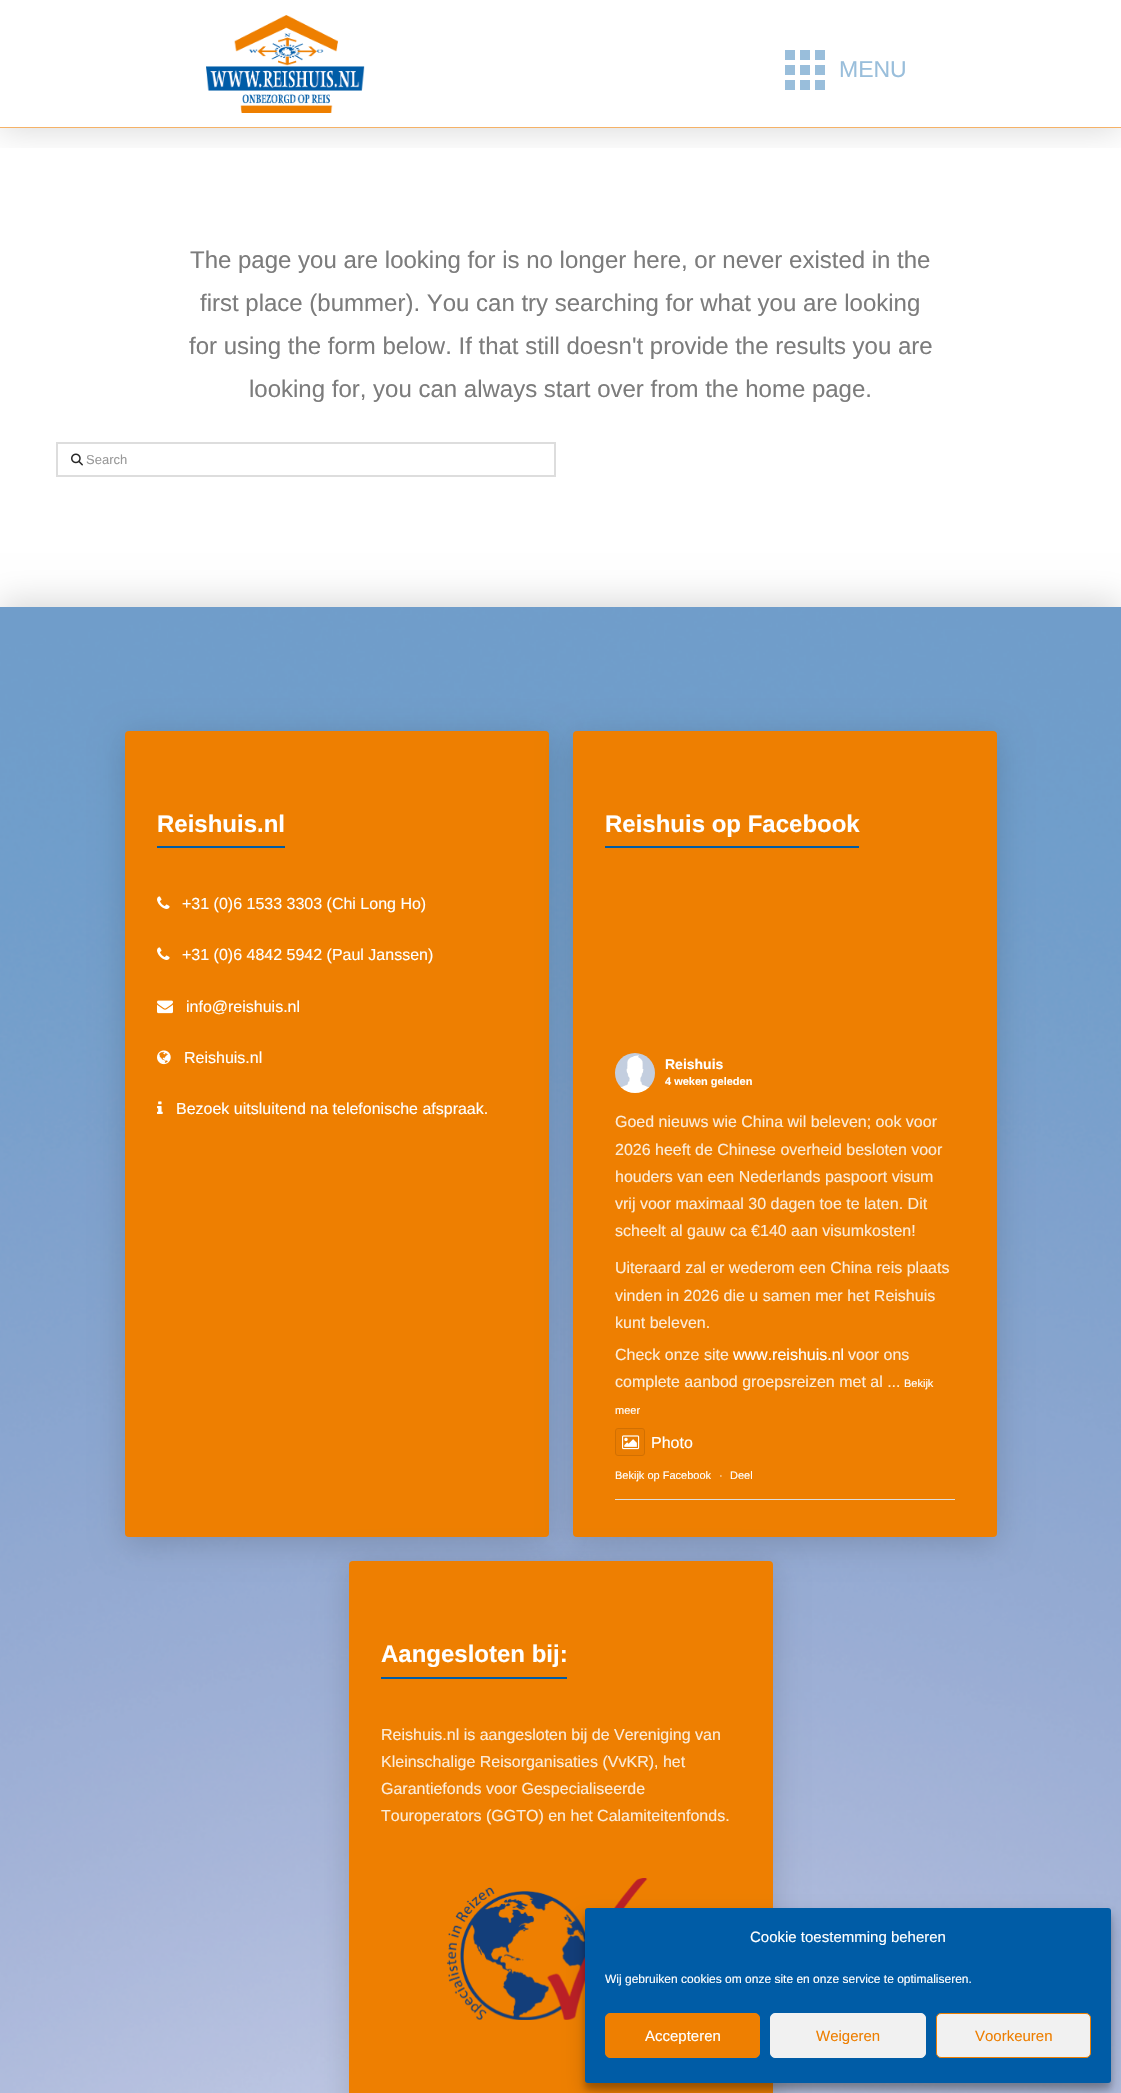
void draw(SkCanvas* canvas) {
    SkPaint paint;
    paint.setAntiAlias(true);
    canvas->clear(0xFFFFFFFF);
    canvas->save();
    canvas->clipRect(SkRect::MakeXYWH(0, 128, 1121, 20));
    paint.setColor(0x26000000);
    paint.setMaskFilter(SkMaskFilter::MakeBlur(kNormal_SkBlurStyle, 16));
    canvas->drawRect(SkRect::MakeXYWH(0, 2, 1121, 128), paint);
    paint.setMaskFilter(nullptr);
    canvas->restore();
    paint.setColor(0xFFF5B267);
    canvas->drawRect(SkRect::MakeXYWH(0, 127, 1121, 1), paint);
    canvas->drawImageRect(SkImages::DeferredFromEncodedData(SkData::MakeFromFileName("img1.png")), SkRect::MakeXYWH(206, 15, 159, 98), SkSamplingOptions());
    paint.setColor(0xFF99BEDB);
    canvas->drawRect(SkRect::MakeXYWH(815, 80, 10, 10), paint);
    canvas->drawRect(SkRect::MakeXYWH(800, 80, 10, 10), paint);
    canvas->drawRect(SkRect::MakeXYWH(785, 80, 10, 10), paint);
    canvas->drawRect(SkRect::MakeXYWH(815, 65, 10, 10), paint);
    canvas->drawRect(SkRect::MakeXYWH(785, 65, 10, 10), paint);
    canvas->drawRect(SkRect::MakeXYWH(815, 50, 10, 10), paint);
    canvas->drawRect(SkRect::MakeXYWH(800, 50, 10, 10), paint);
    canvas->drawRect(SkRect::MakeXYWH(785, 50, 10, 10), paint);
    canvas->drawRect(SkRect::MakeXYWH(800, 65, 10, 10), paint);
    SkFont font1(fontMgr->matchFamilyStyle("Liberation Sans", SkFontStyle::Normal()), 23);
    font1.setSubpixel(true);
    canvas->drawString("MENU", 839, 77, font1, paint);
    SkFont font2(fontMgr->matchFamilyStyle("Liberation Sans", SkFontStyle::Normal()), 24);
    font2.setSubpixel(true);
    paint.setColor(0xFF7C7C7C);
    canvas->drawString("The page you are looking for is no longer here, or never existed in the", 190, 268, font2, paint);
    canvas->drawString("first place (bummer). You can try searching for what you are looking", 200, 311, font2, paint);
    canvas->drawString("for using the form below. If that still doesn't provide the results you are", 189, 354, font2, paint);
    canvas->drawString("looking for, you can always start over from the home page.", 249, 397, font2, paint);
    paint.setStyle(SkPaint::kStroke_Style);
    paint.setStrokeWidth(2);
    paint.setColor(0xFFDDDDDD);
    canvas->drawRect(SkRect::MakeXYWH(57, 443, 498, 33), paint);
    canvas->drawImageRect(SkImages::DeferredFromEncodedData(SkData::MakeFromFileName("img2.png")), SkRect::MakeXYWH(71, 453, 12, 13), SkSamplingOptions());
    SkFont font3(fontMgr->matchFamilyStyle("Liberation Sans", SkFontStyle::Normal()), 13);
    font3.setSubpixel(true);
    paint.setStyle(SkPaint::kFill_Style);
    paint.setColor(0xFF999999);
    canvas->drawString("Search", 86, 464, font3, paint);
    paint.setColor(0x26000000);
    paint.setMaskFilter(SkMaskFilter::MakeBlur(kNormal_SkBlurStyle, 16));
    canvas->drawRect(SkRect::MakeXYWH(0, 601, 1121, 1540), paint);
    paint.setMaskFilter(nullptr);
    canvas->drawImageRect(SkImages::DeferredFromEncodedData(SkData::MakeFromFileName("img3.png")), SkRect::MakeXYWH(0, 607, 1121, 1486), SkSamplingOptions());
    paint.setMaskFilter(SkMaskFilter::MakeBlur(kNormal_SkBlurStyle, 16));
    canvas->drawRoundRect(SkRect::MakeXYWH(125, 737, 424, 806), 4, 4, paint);
    paint.setMaskFilter(nullptr);
    paint.setColor(0xFFEE7F01);
    canvas->drawRoundRect(SkRect::MakeXYWH(125, 731, 424, 806), 4, 4, paint);
    paint.setColor(0xFF005CA6);
    canvas->drawRect(SkRect::MakeXYWH(157, 846, 128, 2), paint);
    SkFont font4(fontMgr->matchFamilyStyle("Liberation Sans", SkFontStyle::Bold()), 24);
    font4.setSubpixel(true);
    paint.setColor(0xFFFFFFFF);
    canvas->drawString("Reishuis.nl", 157, 832, font4, paint);
    canvas->drawImageRect(SkImages::DeferredFromEncodedData(SkData::MakeFromFileName("img4.png")), SkRect::MakeXYWH(157, 896, 13, 13), SkSamplingOptions());
    SkFont font5(fontMgr->matchFamilyStyle("Liberation Sans", SkFontStyle::Normal()), 16);
    font5.setSubpixel(true);
    canvas->drawString("+31 (0)6 1533 3303 (Chi Long Ho)", 182, 909, font5, paint);
    canvas->drawImageRect(SkImages::DeferredFromEncodedData(SkData::MakeFromFileName("img4.png")), SkRect::MakeXYWH(157, 947, 13, 13), SkSamplingOptions());
    canvas->drawString("+31 (0)6 4842 5942 (Paul Janssen)", 182, 960, font5, paint);
    canvas->drawImageRect(SkImages::DeferredFromEncodedData(SkData::MakeFromFileName("img5.png")), SkRect::MakeXYWH(157, 1000, 16, 14), SkSamplingOptions());
    canvas->drawString("info@reishuis.nl", 186, 1012, font5, paint);
    canvas->drawImageRect(SkImages::DeferredFromEncodedData(SkData::MakeFromFileName("img6.png")), SkRect::MakeXYWH(157, 1050, 14, 15), SkSamplingOptions());
    canvas->drawString("Reishuis.nl", 184, 1063, font5, paint);
    canvas->drawImageRect(SkImages::DeferredFromEncodedData(SkData::MakeFromFileName("img7.png")), SkRect::MakeXYWH(157, 1101, 6, 13), SkSamplingOptions());
    canvas->drawString("Bezoek uitsluitend na telefonische afspraak.", 176, 1114, font5, paint);
    paint.setColor(0x26000000);
    paint.setMaskFilter(SkMaskFilter::MakeBlur(kNormal_SkBlurStyle, 16));
    canvas->drawRoundRect(SkRect::MakeXYWH(573, 737, 424, 806), 4, 4, paint);
    paint.setMaskFilter(nullptr);
    paint.setColor(0xFFEE7F01);
    canvas->drawRoundRect(SkRect::MakeXYWH(573, 731, 424, 806), 4, 4, paint);
    paint.setColor(0xFF005CA6);
    canvas->drawRect(SkRect::MakeXYWH(605, 846, 254, 2), paint);
    paint.setColor(0xFFFFFFFF);
    canvas->drawString("Reishuis op Facebook", 605, 832, font4, paint);
    paint.setColor(0xFFDDDDDD);
    canvas->drawRect(SkRect::MakeXYWH(615, 1499, 340, 1), paint);
    canvas->drawImageRect(SkImages::DeferredFromEncodedData(SkData::MakeFromFileName("img8.png")), SkRect::MakeXYWH(615, 1053, 40, 40), SkSamplingOptions());
    SkFont font6(fontMgr->matchFamilyStyle("Liberation Sans", SkFontStyle::Bold()), 14);
    font6.setSubpixel(true);
    paint.setColor(0xFFFFFFFF);
    canvas->drawString("Reishuis", 665, 1069, font6, paint);
    SkFont font7(fontMgr->matchFamilyStyle("Liberation Sans", SkFontStyle::Bold()), 11);
    font7.setSubpixel(true);
    canvas->drawString("4 weken geleden", 665, 1085, font7, paint);
    paint.setColor(0xFFFCECD9);
    canvas->drawString("Goed nieuws wie China wil beleven; ook voor", 615, 1127, font5, paint);
    canvas->drawString("2026 heeft de Chinese overheid besloten voor", 615, 1155, font5, paint);
    canvas->drawString("houders van een Nederlands paspoort visum", 615, 1182, font5, paint);
    canvas->drawString("vrij voor maximaal 30 dagen toe te laten. Dit", 615, 1209, font5, paint);
    canvas->drawString("scheelt al gauw ca €140 aan visumkosten!", 615, 1236, font5, paint);
    canvas->drawString("Uiteraard zal er wederom een China reis plaats", 615, 1273, font5, paint);
    canvas->drawString("vinden in 2026 die u samen mer het Reishuis", 615, 1301, font5, paint);
    canvas->drawString("kunt beleven.", 615, 1328, font5, paint);
    canvas->drawString("Check onze site", 615, 1360, font5, paint);
    paint.setColor(0xFFFFFFFF);
    canvas->drawString("www.reishuis.nl", 733, 1360, font5, paint);
    paint.setColor(0xFFFCECD9);
    canvas->drawString("voor ons", 848, 1360, font5, paint);
    canvas->drawString("complete aanbod groepsreizen met al ...", 615, 1387, font5, paint);
    SkFont font8(fontMgr->matchFamilyStyle("Liberation Sans", SkFontStyle::Normal()), 11);
    font8.setSubpixel(true);
    paint.setColor(0xFFFFFFFF);
    canvas->drawString("Bekijk", 904, 1387, font8, paint);
    canvas->drawString("meer", 615, 1414, font8, paint);
    paint.setColor(0xFFE97C01);
    canvas->drawRoundRect(SkRect::MakeXYWH(615.5f, 1428.5f, 29, 27), 2.5f, 2.5f, paint);
    paint.setStyle(SkPaint::kStroke_Style);
    paint.setStrokeWidth(1);
    paint.setColor(0xFFD27001);
    canvas->drawRoundRect(SkRect::MakeXYWH(615.5f, 1428.5f, 29, 27), 2.5f, 2.5f, paint);
    canvas->drawImageRect(SkImages::DeferredFromEncodedData(SkData::MakeFromFileName("img9.png")), SkRect::MakeXYWH(622, 1435, 18, 15), SkSamplingOptions());
    paint.setStyle(SkPaint::kFill_Style);
    paint.setColor(0xFFFFFFFF);
    canvas->drawString("Photo", 651, 1448, font5, paint);
    canvas->drawString("Bekijk op Facebook", 615, 1479, font8, paint);
    paint.setColor(0xFFFCECD9);
    canvas->drawString("·", 719, 1479, font8, paint);
    paint.setColor(0xFFFFFFFF);
    canvas->drawString("Deel", 730, 1479, font8, paint);
    paint.setColor(0x26000000);
    paint.setMaskFilter(SkMaskFilter::MakeBlur(kNormal_SkBlurStyle, 16));
    canvas->drawRoundRect(SkRect::MakeXYWH(349, 1567, 424, 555), 4, 4, paint);
    paint.setMaskFilter(nullptr);
    paint.setColor(0xFFEE7F01);
    canvas->drawRoundRect(SkRect::MakeXYWH(349, 1561, 424, 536), 4, 4, paint);
    paint.setColor(0xFF005CA6);
    canvas->drawRect(SkRect::MakeXYWH(381, 1677, 186, 2), paint);
    paint.setColor(0xFFFFFFFF);
    canvas->drawString("Aangesloten bij:", 381, 1662, font4, paint);
    paint.setColor(0xFFFCECD9);
    canvas->drawString("Reishuis.nl is aangesloten bij de Vereniging van", 381, 1740, font5, paint);
    canvas->drawString("Kleinschalige Reisorganisaties (VvKR), het", 381, 1767, font5, paint);
    canvas->drawString("Garantiefonds voor Gespecialiseerde", 381, 1794, font5, paint);
    canvas->drawString("Touroperators (GGTO) en het Calamiteitenfonds.", 381, 1821, font5, paint);
    canvas->drawImageRect(SkImages::DeferredFromEncodedData(SkData::MakeFromFileName("img10.png")), SkRect::MakeXYWH(447, 1878, 201, 142), SkSamplingOptions());
    paint.setColor(0x3B000000);
    paint.setMaskFilter(SkMaskFilter::MakeBlur(kNormal_SkBlurStyle, 3));
    canvas->drawRoundRect(SkRect::MakeXYWH(585, 1914, 526, 175), 3, 3, paint);
    paint.setMaskFilter(nullptr);
    paint.setColor(0x30000000);
    paint.setMaskFilter(SkMaskFilter::MakeBlur(kNormal_SkBlurStyle, 10));
    canvas->drawRoundRect(SkRect::MakeXYWH(585, 1918, 526, 175), 3, 3, paint);
    paint.setMaskFilter(nullptr);
    paint.setColor(0xFF005CA6);
    canvas->drawRoundRect(SkRect::MakeXYWH(585, 1908, 526, 175), 3, 3, paint);
    SkFont font9(fontMgr->matchFamilyStyle("Liberation Sans", SkFontStyle::Normal()), 15);
    font9.setSubpixel(true);
    paint.setColor(0xFFFFFFFF);
    canvas->drawString("Cookie toestemming beheren", 750, 1942, font9, paint);
    SkFont font10(fontMgr->matchFamilyStyle("Liberation Sans", SkFontStyle::Normal()), 12);
    font10.setSubpixel(true);
    canvas->drawString("Wij gebruiken cookies om onze site en onze service te optimaliseren.", 605, 1983, font10, paint);
    paint.setColor(0xFFEE7F01);
    canvas->drawRoundRect(SkRect::MakeXYWH(605.5f, 2013.5f, 154, 44), 4.5f, 4.5f, paint);
    paint.setStyle(SkPaint::kStroke_Style);
    canvas->drawRoundRect(SkRect::MakeXYWH(605.5f, 2013.5f, 154, 44), 4.5f, 4.5f, paint);
    paint.setStyle(SkPaint::kFill_Style);
    paint.setColor(0xFFFFFFFF);
    canvas->drawString("Accepteren", 645, 2041, font9, paint);
    paint.setColor(0xFFF1F1F1);
    canvas->drawRoundRect(SkRect::MakeXYWH(770.5f, 2013.5f, 155, 44), 4.5f, 4.5f, paint);
    paint.setStyle(SkPaint::kStroke_Style);
    canvas->drawRoundRect(SkRect::MakeXYWH(770.5f, 2013.5f, 155, 44), 4.5f, 4.5f, paint);
    paint.setStyle(SkPaint::kFill_Style);
    paint.setColor(0xFFEE7F01);
    canvas->drawString("Weigeren", 816, 2041, font9, paint);
    paint.setColor(0xFFF1F1F1);
    canvas->drawRoundRect(SkRect::MakeXYWH(936.5f, 2013.5f, 154, 44), 4.5f, 4.5f, paint);
    paint.setStyle(SkPaint::kStroke_Style);
    paint.setColor(0xFFEE7F01);
    canvas->drawRoundRect(SkRect::MakeXYWH(936.5f, 2013.5f, 154, 44), 4.5f, 4.5f, paint);
    paint.setStyle(SkPaint::kFill_Style);
    canvas->drawString("Voorkeuren", 975, 2041, font9, paint);
}
